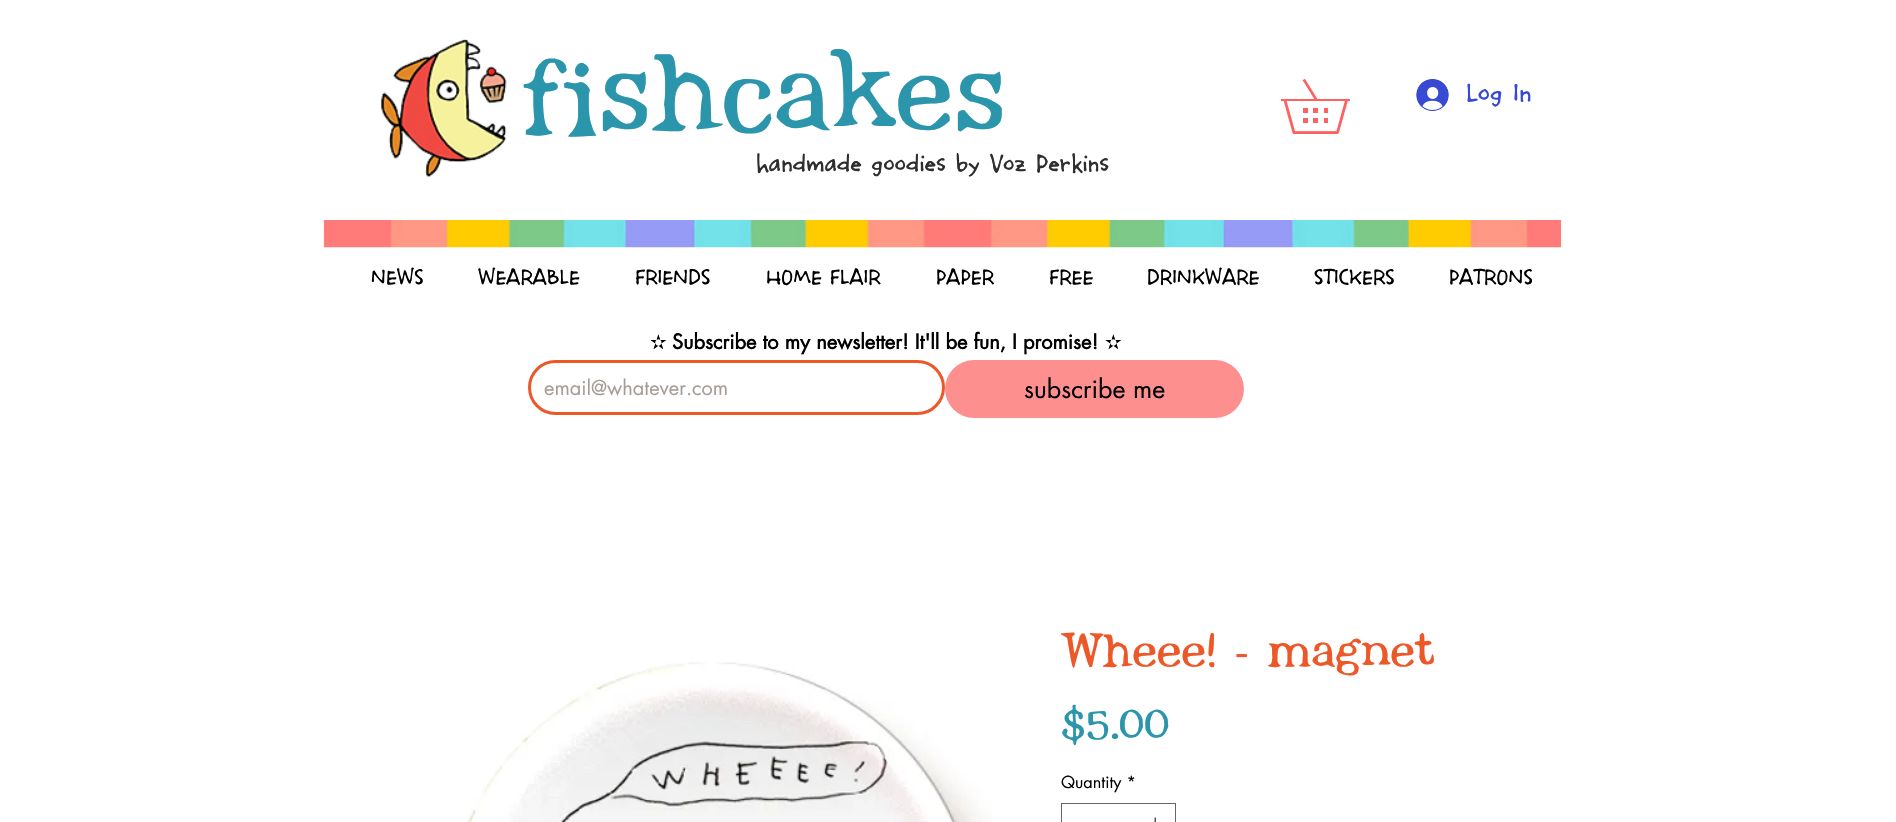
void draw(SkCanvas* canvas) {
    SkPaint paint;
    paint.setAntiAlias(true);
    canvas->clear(0xFFFFFFFF);
    canvas->drawImageRect(SkImages::DeferredFromEncodedData(SkData::MakeFromFileName("img1.png")), SkRect::MakeXYWH(381, 38, 126, 140), SkSamplingOptions());
    SkFont font1(fontMgr->matchFamilyStyle("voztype", SkFontStyle::Normal()), 93.75f);
    font1.setSubpixel(true);
    paint.setColor(0xFF2B95AB);
    canvas->drawString("fishcakes", 522, 126, font1, paint);
    canvas->drawImageRect(SkImages::DeferredFromEncodedData(SkData::MakeFromFileName("img2.png")), SkRect::MakeXYWH(1281, 78, 69, 56), SkSamplingOptions());
    canvas->drawImageRect(SkImages::DeferredFromEncodedData(SkData::MakeFromFileName("img3.png")), SkRect::MakeXYWH(1416, 79, 33, 32), SkSamplingOptions());
    SkFont font2(fontMgr->matchFamilyStyle("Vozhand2", SkFontStyle::Normal()), 22.5f);
    font2.setSubpixel(true);
    paint.setColor(0xFF384AD3);
    canvas->drawString("Log In", 1466, 102, font2, paint);
    SkFont font3(fontMgr->matchFamilyStyle("Vozhand2", SkFontStyle::Normal()), 21.25f);
    font3.setSubpixel(true);
    paint.setColor(0xFF2F2E2E);
    canvas->drawString("handmade goodies by Voz Perkins", 756, 172, font3, paint);
    canvas->drawImageRect(SkImages::DeferredFromEncodedData(SkData::MakeFromFileName("img4.png")), SkRect::MakeXYWH(323, 220, 1239, 28), SkSamplingOptions());
    SkFont font4(fontMgr->matchFamilyStyle("Vozhand2", SkFontStyle::Normal()), 17.5f);
    font4.setSubpixel(true);
    paint.setColor(0xFF000000);
    canvas->drawString("NEWS", 371, 284, font4, paint);
    canvas->drawString("WEARABLE", 478, 284, font4, paint);
    canvas->drawString("FRIENDS", 635, 284, font4, paint);
    canvas->drawString("HOME FLAIR", 766, 284, font4, paint);
    canvas->drawString("PAPER", 936, 284, font4, paint);
    canvas->drawString("FREE", 1049, 284, font4, paint);
    canvas->drawString("DRINKWARE", 1147, 284, font4, paint);
    canvas->drawString("STICKERS", 1314, 284, font4, paint);
    canvas->drawString("PATRONS", 1449, 284, font4, paint);
    SkFont font5(fontMgr->matchFamilyStyle("DejaVu Sans", SkFontStyle::Normal()), 20);
    font5.setSubpixel(true);
    canvas->drawString("✫", 650, 349, font5, paint);
    SkFont font6(fontMgr->matchFamilyStyle("futura", SkFontStyle::Bold()), 20);
    font6.setSubpixel(true);
    canvas->drawString("Subscribe to my newsletter! It'll be fun, I promise!", 672, 349, font6, paint);
    canvas->drawString("✫", 1105, 349, font5, paint);
    paint.setStyle(SkPaint::kStroke_Style);
    paint.setStrokeWidth(3);
    paint.setColor(0xFFED5829);
    canvas->drawRoundRect(SkRect::MakeXYWH(529.5f, 361.5f, 414, 52), 26, 26, paint);
    SkFont font7(fontMgr->matchFamilyStyle("futura", SkFontStyle::Normal()), 20);
    font7.setSubpixel(true);
    paint.setStyle(SkPaint::kFill_Style);
    paint.setColor(0xFFA89D96);
    canvas->drawString("email@whatever.com", 544, 395, font7, paint);
    paint.setColor(0xFFFD8F8F);
    canvas->drawRoundRect(SkRect::MakeXYWH(945, 360, 299, 58), 29, 29, paint);
    SkFont font8(fontMgr->matchFamilyStyle("futura", SkFontStyle::Normal()), 25);
    font8.setSubpixel(true);
    paint.setColor(0xFF000000);
    canvas->drawString("subscribe me", 1024, 398, font8, paint);
    canvas->drawImageRect(SkImages::DeferredFromEncodedData(SkData::MakeFromFileName("img5.png")), SkRect::MakeXYWH(465, 662, 527, 160), SkSamplingOptions());
    SkFont font9(fontMgr->matchFamilyStyle("voztype", SkFontStyle::Normal()), 40);
    font9.setSubpixel(true);
    paint.setColor(0xFFED5829);
    canvas->drawString("Wheee!", 1061, 665, font9, paint);
    SkFont font10(fontMgr->matchFamilyStyle("Liberation Serif", SkFontStyle::Normal()), 40);
    font10.setSubpixel(true);
    canvas->drawString("-", 1235, 665, font10, paint);
    canvas->drawString("magnet", 1267, 665, font9, paint);
    SkFont font11(fontMgr->matchFamilyStyle("voztype", SkFontStyle::Normal()), 34);
    font11.setSubpixel(true);
    paint.setColor(0xFF2B95AB);
    canvas->drawString("$5.00", 1061, 737, font11, paint);
    SkFont font12(fontMgr->matchFamilyStyle("futura", SkFontStyle::Normal()), 16.25f);
    font12.setSubpixel(true);
    paint.setColor(0xFF000000);
    canvas->drawString("Quantity *", 1061, 788, font12, paint);
    paint.setStyle(SkPaint::kStroke_Style);
    paint.setStrokeWidth(1);
    paint.setColor(0xFF666666);
    canvas->drawRect(SkRect::MakeXYWH(1061.5f, 803.5f, 114, 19), paint);
    canvas->drawImageRect(SkImages::DeferredFromEncodedData(SkData::MakeFromFileName("img6.png")), SkRect::MakeXYWH(1154, 817, 2, 5), SkSamplingOptions());
}
